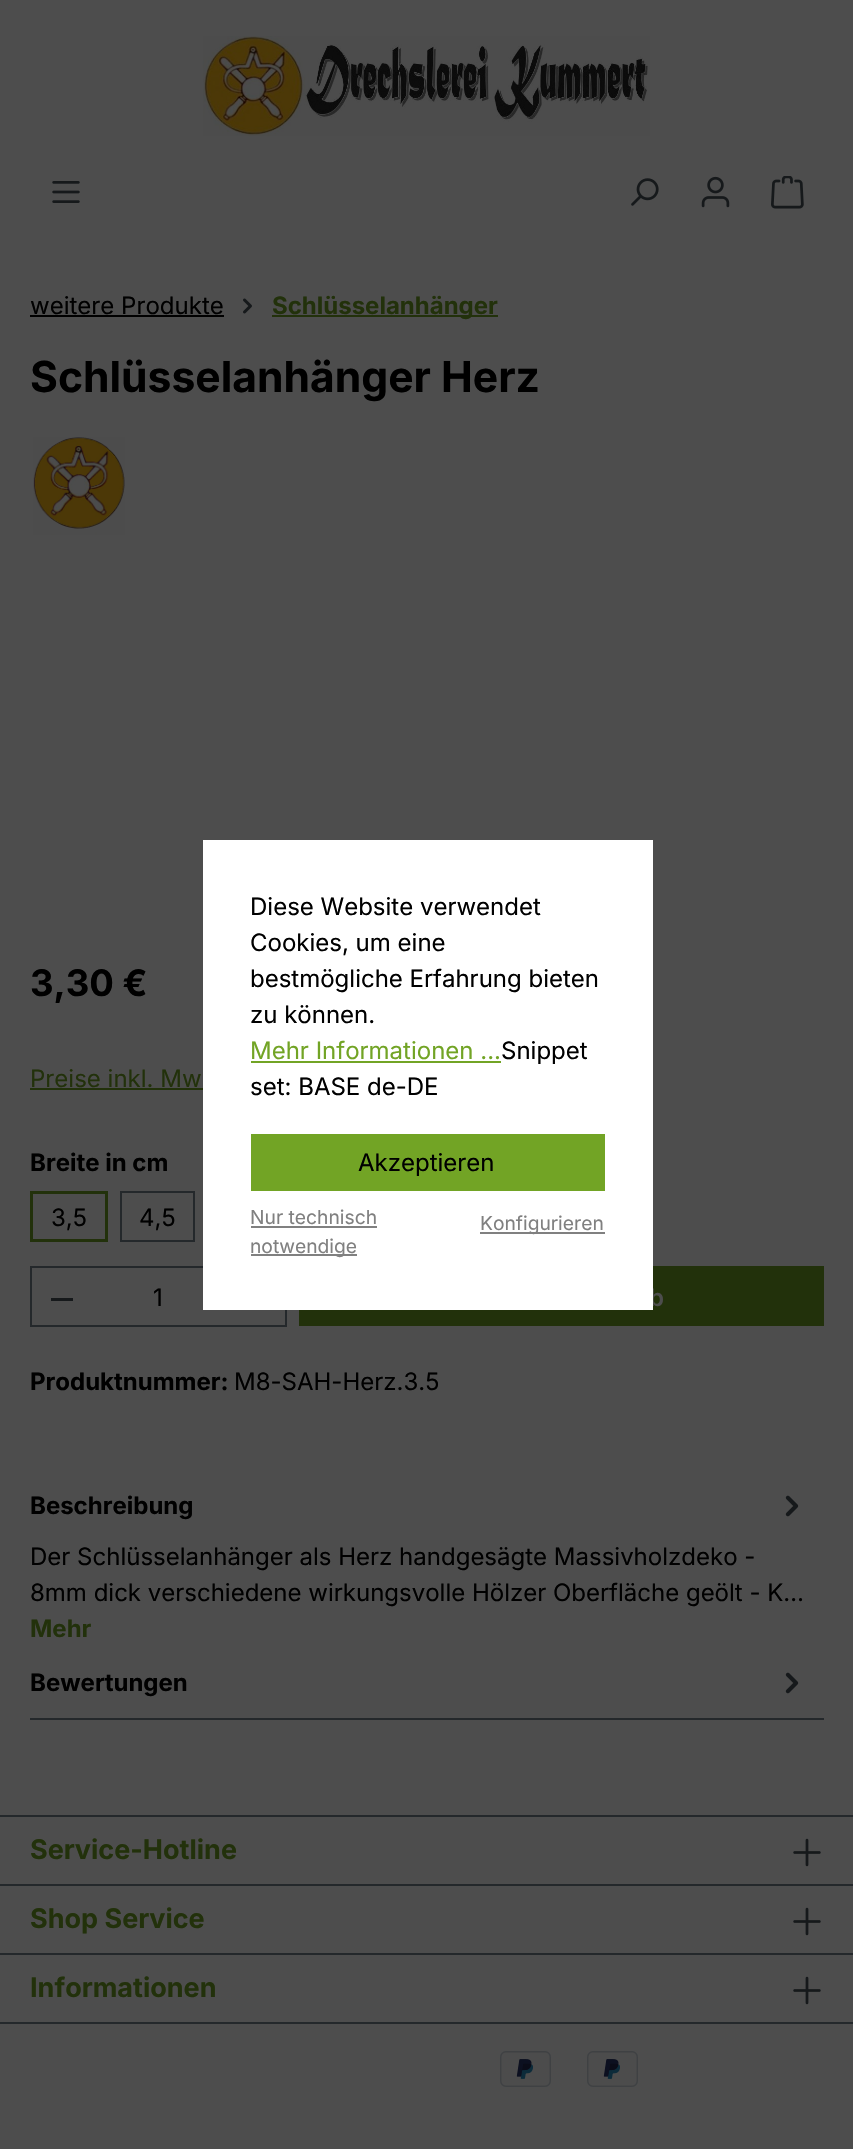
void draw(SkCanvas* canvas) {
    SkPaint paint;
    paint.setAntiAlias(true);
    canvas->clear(0xFF4D4D4D);
    canvas->drawImageRect(SkImages::DeferredFromEncodedData(SkData::MakeFromFileName("img1.png")), SkRect::MakeXYWH(202, 36, 448, 101), SkSamplingOptions());
    canvas->drawImageRect(SkImages::DeferredFromEncodedData(SkData::MakeFromFileName("img2.png")), SkRect::MakeXYWH(52, 181, 28, 22), SkSamplingOptions());
    canvas->drawImageRect(SkImages::DeferredFromEncodedData(SkData::MakeFromFileName("img3.png")), SkRect::MakeXYWH(631, 178, 28, 28), SkSamplingOptions());
    canvas->drawImageRect(SkImages::DeferredFromEncodedData(SkData::MakeFromFileName("img4.png")), SkRect::MakeXYWH(701, 176, 29, 32), SkSamplingOptions());
    canvas->drawImageRect(SkImages::DeferredFromEncodedData(SkData::MakeFromFileName("img5.png")), SkRect::MakeXYWH(771, 176, 33, 33), SkSamplingOptions());
    SkFont font1(fontMgr->matchFamilyStyle("Inter", SkFontStyle::Normal()), 24);
    font1.setSubpixel(true);
    paint.setColor(0xFF000000);
    canvas->drawString("weitere Produkte", 30, 314, font1, paint);
    canvas->drawRect(SkRect::MakeXYWH(30, 315, 194, 2), paint);
    canvas->drawImageRect(SkImages::DeferredFromEncodedData(SkData::MakeFromFileName("img6.png")), SkRect::MakeXYWH(243, 298, 9, 16), SkSamplingOptions());
    paint.setColor(0xFF22310B);
    canvas->drawRect(SkRect::MakeXYWH(272, 315, 226, 2), paint);
    SkFont font2(fontMgr->matchFamilyStyle("Inter", SkFontStyle::Bold()), 24);
    font2.setSubpixel(true);
    canvas->drawString("Schlüsselanhänger", 272, 314, font2, paint);
    SkFont font3(fontMgr->matchFamilyStyle("Inter", SkFontStyle::Bold()), 42.6f);
    font3.setSubpixel(true);
    paint.setColor(0xFF000000);
    canvas->drawString("Schlüsselanhänger Herz", 30, 392, font3, paint);
    canvas->drawImageRect(SkImages::DeferredFromEncodedData(SkData::MakeFromFileName("img7.png")), SkRect::MakeXYWH(33, 437, 92, 98), SkSamplingOptions());
    SkFont font4(fontMgr->matchFamilyStyle("Inter", SkFontStyle::Bold()), 36.5f);
    font4.setSubpixel(true);
    canvas->drawString("3,30 €", 30, 996, font4, paint);
    paint.setColor(0xFF22310B);
    canvas->drawString("Preise inkl. Mw", 30, 1087, font1, paint);
    canvas->drawRect(SkRect::MakeXYWH(30, 1088, 173, 2), paint);
    paint.setColor(0xFF000000);
    canvas->drawString("Breite in cm", 30, 1171, font2, paint);
    paint.setStyle(SkPaint::kStroke_Style);
    paint.setStrokeWidth(3);
    paint.setColor(0xFF22310B);
    canvas->drawRect(SkRect::MakeXYWH(31.5f, 1192.5f, 75, 48), paint);
    paint.setStyle(SkPaint::kFill_Style);
    paint.setColor(0xFF000000);
    canvas->drawString("3,5", 51, 1226, font1, paint);
    paint.setStyle(SkPaint::kStroke_Style);
    paint.setStrokeWidth(2);
    paint.setColor(0xFF24282B);
    canvas->drawRect(SkRect::MakeXYWH(121, 1192, 73, 49), paint);
    paint.setStyle(SkPaint::kFill_Style);
    paint.setColor(0xFF000000);
    canvas->drawString("4,5", 139, 1226, font1, paint);
    paint.setColor(0xFF24282B);
    canvas->drawRect(SkRect::MakeXYWH(30, 1266, 173, 2), paint);
    canvas->drawRect(SkRect::MakeXYWH(30, 1325, 197, 2), paint);
    canvas->drawRect(SkRect::MakeXYWH(30, 1266, 2, 60), paint);
    paint.setColor(0xFF16191B);
    canvas->drawRect(SkRect::MakeXYWH(51, 1298, 22, 3), paint);
    paint.setColor(0xFF000000);
    canvas->drawString("1", 153, 1306, font1, paint);
    paint.setColor(0xFF24282B);
    canvas->drawRect(SkRect::MakeXYWH(285, 1310, 2, 16), paint);
    canvas->drawRect(SkRect::MakeXYWH(225, 1325, 62, 2), paint);
    paint.setColor(0xFF22310B);
    canvas->drawRect(SkRect::MakeXYWH(299, 1266, 525, 60), paint);
    SkFont font5(fontMgr->matchFamilyStyle("Inter", SkFontStyle(600, SkFontStyle::kNormal_Width, SkFontStyle::kUpright_Slant)), 24);
    font5.setSubpixel(true);
    paint.setColor(0xFF4D4D4D);
    canvas->drawString("b", 649, 1306, font5, paint);
    paint.setColor(0xFF000000);
    canvas->drawString("Produktnummer:", 30, 1390, font2, paint);
    canvas->drawString("M8-SAH-Herz.3.5", 234, 1390, font1, paint);
    paint.setColor(0xFF24282B);
    canvas->drawRect(SkRect::MakeXYWH(30, 1718, 794, 2), paint);
    paint.setColor(0xFF000000);
    canvas->drawString("Beschreibung", 30, 1514, font2, paint);
    canvas->drawImageRect(SkImages::DeferredFromEncodedData(SkData::MakeFromFileName("img8.png")), SkRect::MakeXYWH(785, 1495, 14, 22), SkSamplingOptions());
    canvas->drawString("Der Schlüsselanhänger als Herz handgesägte Massivholzdeko -", 30, 1565, font1, paint);
    canvas->drawString("8mm dick verschiedene wirkungsvolle Hölzer Oberfläche geölt - K…", 30, 1601, font1, paint);
    paint.setColor(0xFF22310B);
    canvas->drawString("Mehr", 30, 1637, font2, paint);
    paint.setColor(0xFF000000);
    canvas->drawString("Bewertungen", 30, 1691, font2, paint);
    canvas->drawImageRect(SkImages::DeferredFromEncodedData(SkData::MakeFromFileName("img8.png")), SkRect::MakeXYWH(785, 1672, 14, 22), SkSamplingOptions());
    paint.setColor(0xFFFFFFFF);
    canvas->drawRect(SkRect::MakeXYWH(203, 840, 450, 470), paint);
    paint.setColor(0xFF000000);
    canvas->drawString("Diese Website verwendet", 250, 915, font1, paint);
    canvas->drawString("Cookies, um eine", 250, 951, font1, paint);
    canvas->drawString("bestmögliche Erfahrung bieten", 250, 987, font1, paint);
    canvas->drawString("zu können.", 250, 1023, font1, paint);
    paint.setColor(0xFF72A425);
    canvas->drawString("Mehr Informationen ...", 250, 1059, font1, paint);
    canvas->drawRect(SkRect::MakeXYWH(251, 1061, 250, 2), paint);
    paint.setColor(0xFF000000);
    canvas->drawString("Snippet", 501, 1059, font1, paint);
    canvas->drawString("set: BASE de-DE", 250, 1095, font1, paint);
    paint.setColor(0xFF72A425);
    canvas->drawRect(SkRect::MakeXYWH(251, 1134, 354, 57), paint);
    paint.setColor(0xFF000000);
    canvas->drawString("Akzeptieren", 358, 1171, font1, paint);
    SkFont font6(fontMgr->matchFamilyStyle("Inter", SkFontStyle::Normal()), 19.25f);
    font6.setSubpixel(true);
    paint.setColor(0xFF808080);
    canvas->drawString("Nur technisch", 250, 1224, font6, paint);
    canvas->drawRect(SkRect::MakeXYWH(251, 1226, 126, 2), paint);
    canvas->drawRect(SkRect::MakeXYWH(251, 1254, 106, 2), paint);
    canvas->drawString("notwendige", 250, 1253, font6, paint);
    canvas->drawRect(SkRect::MakeXYWH(480, 1232, 125, 2), paint);
    canvas->drawString("Konfigurieren", 480, 1230, font6, paint);
    paint.setColor(0xFF24282B);
    canvas->drawRect(SkRect::MakeXYWH(0, 1815, 853, 2), paint);
    canvas->drawRect(SkRect::MakeXYWH(0, 1884, 853, 2), paint);
    SkFont font7(fontMgr->matchFamilyStyle("Inter", SkFontStyle::Bold()), 27);
    font7.setSubpixel(true);
    paint.setColor(0xFF22310B);
    canvas->drawString("Service-Hotline", 30, 1859, font7, paint);
    canvas->drawImageRect(SkImages::DeferredFromEncodedData(SkData::MakeFromFileName("img9.png")), SkRect::MakeXYWH(793, 1838, 28, 29), SkSamplingOptions());
    paint.setColor(0xFF24282B);
    canvas->drawRect(SkRect::MakeXYWH(0, 1953, 853, 2), paint);
    paint.setColor(0xFF22310B);
    canvas->drawString("Shop Service", 30, 1928, font7, paint);
    canvas->drawImageRect(SkImages::DeferredFromEncodedData(SkData::MakeFromFileName("img9.png")), SkRect::MakeXYWH(793, 1907, 28, 29), SkSamplingOptions());
    paint.setColor(0xFF24282B);
    canvas->drawRect(SkRect::MakeXYWH(0, 2022, 853, 2), paint);
    paint.setColor(0xFF22310B);
    canvas->drawString("Informationen", 30, 1997, font7, paint);
    canvas->drawImageRect(SkImages::DeferredFromEncodedData(SkData::MakeFromFileName("img9.png")), SkRect::MakeXYWH(793, 1976, 28, 29), SkSamplingOptions());
    canvas->drawImageRect(SkImages::DeferredFromEncodedData(SkData::MakeFromFileName("img10.png")), SkRect::MakeXYWH(500, 2051, 51, 36), SkSamplingOptions());
    canvas->drawImageRect(SkImages::DeferredFromEncodedData(SkData::MakeFromFileName("img10.png")), SkRect::MakeXYWH(587, 2051, 51, 36), SkSamplingOptions());
}
